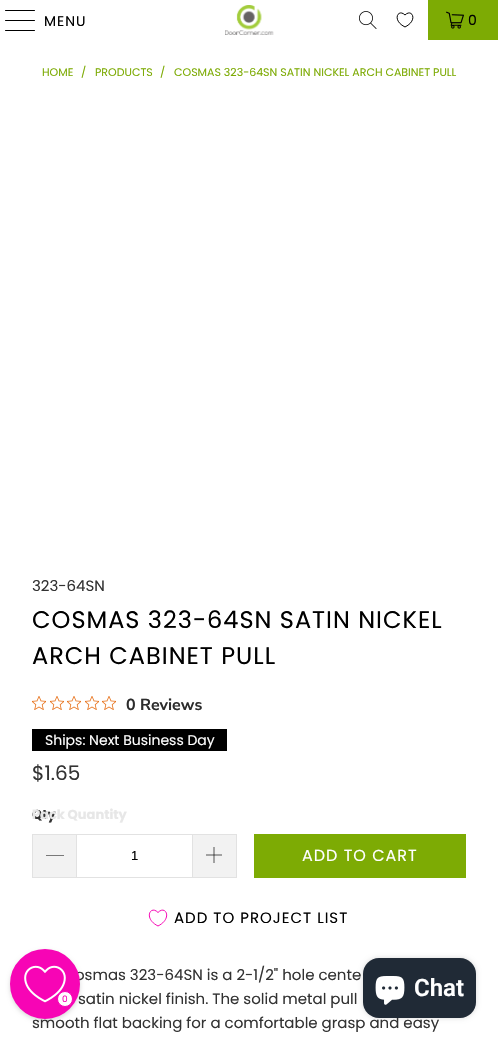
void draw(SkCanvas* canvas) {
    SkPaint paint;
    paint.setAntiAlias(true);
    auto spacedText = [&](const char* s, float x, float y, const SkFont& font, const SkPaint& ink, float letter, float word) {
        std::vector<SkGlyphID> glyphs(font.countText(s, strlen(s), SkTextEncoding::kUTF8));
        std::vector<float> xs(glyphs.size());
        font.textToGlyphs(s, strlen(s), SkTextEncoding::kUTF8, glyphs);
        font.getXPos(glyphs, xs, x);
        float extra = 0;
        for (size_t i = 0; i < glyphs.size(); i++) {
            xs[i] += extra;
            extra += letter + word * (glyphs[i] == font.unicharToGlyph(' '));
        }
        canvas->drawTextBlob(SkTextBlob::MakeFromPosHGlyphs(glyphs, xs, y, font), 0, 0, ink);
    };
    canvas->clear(0xFFFFFFFF);
    paint.setColor(0xFF000000);
    canvas->drawRoundRect(SkRect::MakeXYWH(5, 10, 30, 1), 0.5f, 0.5f, paint);
    canvas->drawRoundRect(SkRect::MakeXYWH(5, 20, 30, 1), 0.5f, 0.5f, paint);
    canvas->drawRoundRect(SkRect::MakeXYWH(5, 30, 30, 1), 0.5f, 0.5f, paint);
    SkFont font1(fontMgr->matchFamilyStyle("Poppins", SkFontStyle::Normal()), 14);
    font1.setSubpixel(true);
    spacedText("MENU", 44, 26, font1, paint, 1, 0);
    canvas->drawImageRect(SkImages::DeferredFromEncodedData(SkData::MakeFromFileName("img1.png")), SkRect::MakeXYWH(225, 5, 49, 30), SkSamplingOptions());
    canvas->drawImageRect(SkImages::DeferredFromEncodedData(SkData::MakeFromFileName("img2.png")), SkRect::MakeXYWH(359, 11, 18, 18), SkSamplingOptions());
    paint.setStyle(SkPaint::kStroke_Style);
    paint.setStrokeWidth(1);
    canvas->drawPath(SkPathBuilder().moveTo(405, 27).cubicTo(391.5f, 20.5f, 398, 8, 405, 15).cubicTo(412, 8, 418.5f, 20.5f, 405, 27).close().detach(), paint);
    paint.setStyle(SkPaint::kFill_Style);
    paint.setColor(0xFF7DAB04);
    canvas->drawRect(SkRect::MakeXYWH(428, 0, 70, 40), paint);
    canvas->drawImageRect(SkImages::DeferredFromEncodedData(SkData::MakeFromFileName("img3.png")), SkRect::MakeXYWH(446, 11, 18, 18), SkSamplingOptions());
    paint.setColor(0xFF000000);
    spacedText("0", 468, 25, font1, paint, 1, 0);
    SkFont font2(fontMgr->matchFamilyStyle("Poppins", SkFontStyle::Normal()), 11);
    font2.setSubpixel(true);
    paint.setColor(0xFF7DAB04);
    canvas->drawString("HOME", 42, 76, font2, paint);
    canvas->drawString("/", 81, 76, font2, paint);
    canvas->drawString("PRODUCTS", 95, 76, font2, paint);
    canvas->drawString("/", 160, 76, font2, paint);
    canvas->drawString("COSMAS 323-64SN SATIN NICKEL ARCH CABINET PULL", 174, 76, font2, paint);
    SkFont font3(fontMgr->matchFamilyStyle("Poppins", SkFontStyle::Normal()), 15);
    font3.setSubpixel(true);
    paint.setColor(0xFF333333);
    canvas->drawString("323-64SN", 32, 591, font3, paint);
    SkFont font4(fontMgr->matchFamilyStyle("Poppins", SkFontStyle::Normal()), 24);
    font4.setSubpixel(true);
    paint.setColor(0xFF000000);
    spacedText("COSMAS 323-64SN SATIN NICKEL", 32, 628, font4, paint, 1, 0);
    spacedText("ARCH CABINET PULL", 32, 664, font4, paint, 1, 0);
    canvas->drawImageRect(SkImages::DeferredFromEncodedData(SkData::MakeFromFileName("img4.png")), SkRect::MakeXYWH(32, 696, 14, 14), SkSamplingOptions());
    canvas->drawImageRect(SkImages::DeferredFromEncodedData(SkData::MakeFromFileName("img4.png")), SkRect::MakeXYWH(50, 696, 14, 14), SkSamplingOptions());
    canvas->drawImageRect(SkImages::DeferredFromEncodedData(SkData::MakeFromFileName("img4.png")), SkRect::MakeXYWH(67, 696, 14, 14), SkSamplingOptions());
    canvas->drawImageRect(SkImages::DeferredFromEncodedData(SkData::MakeFromFileName("img4.png")), SkRect::MakeXYWH(85, 696, 14, 14), SkSamplingOptions());
    canvas->drawImageRect(SkImages::DeferredFromEncodedData(SkData::MakeFromFileName("img4.png")), SkRect::MakeXYWH(102, 696, 14, 14), SkSamplingOptions());
    SkFont font5(fontMgr->matchFamilyStyle("Nunito Sans", SkFontStyle(200, SkFontStyle::kNormal_Width, SkFontStyle::kUpright_Slant)), 16);
    font5.setSubpixel(true);
    paint.setColor(0xFF2C2C2C);
    canvas->drawString("0 Reviews", 126, 710, font5, paint);
    paint.setColor(0xFF000000);
    canvas->drawRect(SkRect::MakeXYWH(32, 729, 195, 22), paint);
    paint.setColor(0xFFFFFFFF);
    canvas->drawString("Ships: Next Business Day", 45, 745, font1, paint);
    SkFont font6(fontMgr->matchFamilyStyle("Poppins", SkFontStyle::Normal()), 20);
    font6.setSubpixel(true);
    paint.setColor(0xFF333333);
    canvas->drawString("$1.65", 32, 780, font6, paint);
    SkFont font7(fontMgr->matchFamilyStyle("Poppins", SkFontStyle::Bold()), 13);
    font7.setSubpixel(true);
    canvas->drawString("Qty", 32, 819, font7, paint);
    paint.setColor(0xFFE7E7E7);
    canvas->drawString("Pack Quantity", 32, 819, font7, paint);
    paint.setColor(0xFFF2F2F2);
    canvas->drawRect(SkRect::MakeXYWH(33, 835, 43, 42), paint);
    paint.setColor(0xFFE2E2E2);
    canvas->drawRect(SkRect::MakeXYWH(32, 834, 44, 1), paint);
    canvas->drawRect(SkRect::MakeXYWH(32, 877, 44, 1), paint);
    canvas->drawRect(SkRect::MakeXYWH(32, 834, 1, 44), paint);
    paint.setColor(0xFF000000);
    canvas->drawPath(SkPathBuilder().moveTo(46, 855).lineTo(64, 855).lineTo(64, 855.5f).lineTo(46, 855.5f).close().detach(), paint);
    paint.setStyle(SkPaint::kStroke_Style);
    paint.setColor(0xFFE2E2E2);
    canvas->drawRect(SkRect::MakeXYWH(76.5f, 834.5f, 116, 43), paint);
    SkFont font8(fontMgr->matchFamilyStyle("Liberation Sans", SkFontStyle::Normal()), 13);
    font8.setSubpixel(true);
    paint.setStyle(SkPaint::kFill_Style);
    paint.setColor(0xFF000000);
    canvas->drawString("1", 131, 860, font8, paint);
    paint.setColor(0xFFF2F2F2);
    canvas->drawRect(SkRect::MakeXYWH(193, 835, 43, 42), paint);
    paint.setColor(0xFFE2E2E2);
    canvas->drawRect(SkRect::MakeXYWH(193, 834, 44, 1), paint);
    canvas->drawRect(SkRect::MakeXYWH(236, 834, 1, 44), paint);
    canvas->drawRect(SkRect::MakeXYWH(193, 877, 44, 1), paint);
    canvas->drawImageRect(SkImages::DeferredFromEncodedData(SkData::MakeFromFileName("img5.png")), SkRect::MakeXYWH(206, 847, 16, 16), SkSamplingOptions());
    paint.setColor(0xFF7DAB04);
    canvas->drawRect(SkRect::MakeXYWH(254, 834, 212, 44), paint);
    SkFont font9(fontMgr->matchFamilyStyle("Poppins", SkFontStyle::Normal()), 16);
    font9.setSubpixel(true);
    paint.setColor(0xFFFFFFFF);
    spacedText("ADD TO CART", 302, 861, font9, paint, 1, 0);
    paint.setStyle(SkPaint::kStroke_Style);
    paint.setColor(0xFFF705B5);
    canvas->drawPath(SkPathBuilder().moveTo(158, 926).cubicTo(143, 918.5f, 150.5f, 904.5f, 158, 912.5f).cubicTo(165.5f, 904.5f, 173, 918.5f, 158, 926).close().detach(), paint);
    paint.setStyle(SkPaint::kFill_Style);
    paint.setColor(0xFF000000);
    spacedText("ADD TO PROJECT LIST", 174, 923, font3, paint, 1, 0);
    paint.setColor(0xFF333333);
    canvas->drawString("osmas 323-64SN is a 2-1/2\" hole cente", 75, 980, font3, paint);
    canvas->drawString("satin nickel finish. The solid metal pull", 78, 1004, font3, paint);
    canvas->drawString("smooth flat backing for a comfortable grasp and easy", 32, 1028, font3, paint);
    paint.setColor(0x26000000);
    paint.setMaskFilter(SkMaskFilter::MakeBlur(kNormal_SkBlurStyle, 2.5f));
    canvas->drawRoundRect(SkRect::MakeXYWH(363, 958, 113, 60), 16, 16, paint);
    paint.setMaskFilter(nullptr);
    paint.setColor(0xFF202A36);
    canvas->drawRoundRect(SkRect::MakeXYWH(363, 958, 113, 60), 16, 16, paint);
    canvas->drawImageRect(SkImages::DeferredFromEncodedData(SkData::MakeFromFileName("img6.png")), SkRect::MakeXYWH(375, 976, 30, 29), SkSamplingOptions());
    SkFont font10(fontMgr->matchFamilyStyle("Roboto", SkFontStyle(600, SkFontStyle::kNormal_Width, SkFontStyle::kUpright_Slant)), 24);
    font10.setSubpixel(true);
    paint.setColor(0xFFFFFFFF);
    canvas->drawString("Chat", 414, 996, font10, paint);
    paint.setColor(0x26000000);
    paint.setMaskFilter(SkMaskFilter::MakeBlur(kNormal_SkBlurStyle, 2));
    canvas->drawRoundRect(SkRect::MakeXYWH(10, 951, 70, 70), 35, 35, paint);
    paint.setMaskFilter(nullptr);
    paint.setColor(0xFFF705B5);
    canvas->drawCircle(45, 984, 34, paint);
    paint.setStyle(SkPaint::kStroke_Style);
    paint.setStrokeWidth(2);
    canvas->drawCircle(45, 984, 34, paint);
    canvas->drawImageRect(SkImages::DeferredFromEncodedData(SkData::MakeFromFileName("img7.png")), SkRect::MakeXYWH(24, 965, 42, 38), SkSamplingOptions());
    paint.setStyle(SkPaint::kFill_Style);
    paint.setColor(0xFFFFFFFF);
    canvas->drawCircle(65, 999, 7.5f, paint);
    paint.setStyle(SkPaint::kStroke_Style);
    paint.setStrokeWidth(1);
    paint.setColor(0xFFF705B5);
    canvas->drawCircle(65, 999, 7.5f, paint);
    SkFont font11(fontMgr->matchFamilyStyle("Poppins", SkFontStyle::Normal()), 9);
    font11.setSubpixel(true);
    paint.setStyle(SkPaint::kFill_Style);
    canvas->drawString("0", 62, 1002, font11, paint);
}
